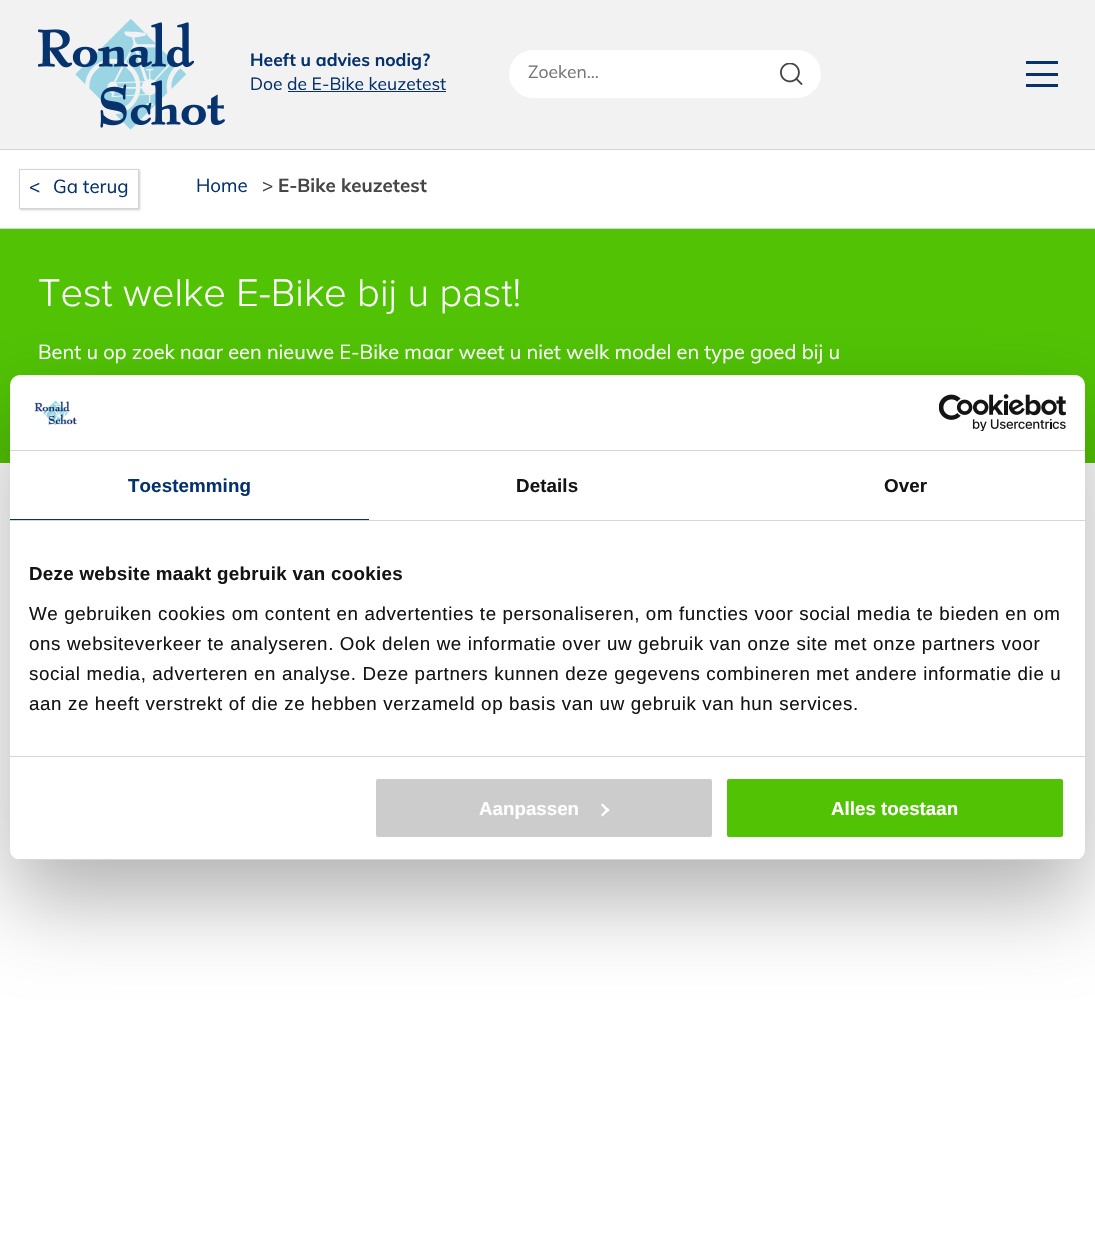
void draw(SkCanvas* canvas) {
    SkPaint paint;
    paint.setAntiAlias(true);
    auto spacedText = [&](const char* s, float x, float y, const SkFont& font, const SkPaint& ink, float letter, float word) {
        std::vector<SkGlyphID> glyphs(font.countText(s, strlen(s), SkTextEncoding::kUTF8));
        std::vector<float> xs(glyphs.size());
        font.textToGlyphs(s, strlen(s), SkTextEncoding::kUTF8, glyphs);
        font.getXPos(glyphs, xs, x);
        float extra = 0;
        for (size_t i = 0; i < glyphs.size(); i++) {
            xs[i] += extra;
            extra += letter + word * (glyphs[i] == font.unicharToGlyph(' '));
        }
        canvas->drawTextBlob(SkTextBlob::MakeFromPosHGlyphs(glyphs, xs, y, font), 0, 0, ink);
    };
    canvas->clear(0xFFFFFFFF);
    paint.setColor(0xFFD4D4D4);
    canvas->drawRect(SkRect::MakeXYWH(0, 149, 1095, 1), paint);
    paint.setColor(0xFFF2F2F2);
    canvas->drawRect(SkRect::MakeXYWH(0, 0, 1095, 149), paint);
    canvas->drawImageRect(SkImages::DeferredFromEncodedData(SkData::MakeFromFileName("img1.png")), SkRect::MakeXYWH(38, 19, 187, 111), SkSamplingOptions());
    SkFont font1(fontMgr->matchFamilyStyle("Muli", SkFontStyle::Bold()), 17.5f);
    font1.setSubpixel(true);
    paint.setColor(0xFF05326E);
    canvas->drawString("Heeft u advies nodig?", 250, 66, font1, paint);
    SkFont font2(fontMgr->matchFamilyStyle("Muli", SkFontStyle::Normal()), 17.5f);
    font2.setSubpixel(true);
    canvas->drawString("Doe", 250, 90, font2, paint);
    canvas->drawString("de E-Bike keuzetest", 287, 90, font2, paint);
    canvas->drawRect(SkRect::MakeXYWH(288, 91, 158, 1), paint);
    paint.setColor(0xFFFFFFFF);
    canvas->drawRoundRect(SkRect::MakeXYWH(509, 50, 312, 48), 24, 24, paint);
    canvas->drawImageRect(SkImages::DeferredFromEncodedData(SkData::MakeFromFileName("img2.png")), SkRect::MakeXYWH(780, 63, 23, 22), SkSamplingOptions());
    paint.setColor(0xFF757575);
    canvas->drawString("Zoeken...", 528, 78, font2, paint);
    paint.setColor(0xFF06326E);
    canvas->drawRect(SkRect::MakeXYWH(1026, 61, 32, 3), paint);
    canvas->drawRect(SkRect::MakeXYWH(1026, 73, 32, 3), paint);
    canvas->drawRect(SkRect::MakeXYWH(1026, 84, 32, 3), paint);
    paint.setColor(0xFFD4D4D4);
    canvas->drawRect(SkRect::MakeXYWH(0, 228, 1095, 1), paint);
    canvas->save();
    canvas->clipPath(SkPathBuilder(SkPathFillType::kEvenOdd).moveTo(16, 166).lineTo(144, 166).lineTo(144, 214).lineTo(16, 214).close().moveTo(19, 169).lineTo(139, 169).lineTo(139, 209).lineTo(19, 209).close().detach(), true);
    paint.setColor(0x33000000);
    paint.setMaskFilter(SkMaskFilter::MakeBlur(kNormal_SkBlurStyle, 1));
    canvas->drawRect(SkRect::MakeXYWH(20, 170, 120, 40), paint);
    paint.setMaskFilter(nullptr);
    canvas->restore();
    paint.setStyle(SkPaint::kStroke_Style);
    paint.setStrokeWidth(1);
    paint.setColor(0xFFD4D4D4);
    canvas->drawRect(SkRect::MakeXYWH(19.5f, 169.5f, 119, 39), paint);
    SkFont font3(fontMgr->matchFamilyStyle("Muli", SkFontStyle::Normal()), 18.75f);
    font3.setSubpixel(true);
    paint.setStyle(SkPaint::kFill_Style);
    paint.setColor(0xFF05326E);
    canvas->drawString("<", 29, 193, font3, paint);
    canvas->drawString("Ga terug", 53, 193, font3, paint);
    canvas->drawString("Home", 196, 192, font3, paint);
    paint.setColor(0xFF464646);
    canvas->drawString(">", 262, 192, font3, paint);
    SkFont font4(fontMgr->matchFamilyStyle("Muli", SkFontStyle::Bold()), 18.75f);
    font4.setSubpixel(true);
    canvas->drawString("E-Bike keuzetest", 278, 192, font4, paint);
    paint.setColor(0xFF51C304);
    canvas->drawRect(SkRect::MakeXYWH(0, 229, 1095, 234), paint);
    SkFont font5(fontMgr->matchFamilyStyle("Proxima Nova", SkFontStyle(300, SkFontStyle::kNormal_Width, SkFontStyle::kUpright_Slant)), 40);
    font5.setSubpixel(true);
    paint.setColor(0xFFFFFFFF);
    canvas->drawString("Test welke E-Bike bij u past!", 38, 306, font5, paint);
    SkFont font6(fontMgr->matchFamilyStyle("Muli", SkFontStyle::Normal()), 20);
    font6.setSubpixel(true);
    canvas->drawString("Bent u op zoek naar een nieuwe E-Bike maar weet u niet welk model en type goed bij u", 38, 359, font6, paint);
    paint.setColor(0x4D000000);
    paint.setMaskFilter(SkMaskFilter::MakeBlur(kNormal_SkBlurStyle, 42.5f));
    canvas->drawRoundRect(SkRect::MakeXYWH(10, 415, 1075, 485), 10, 10, paint);
    paint.setMaskFilter(nullptr);
    paint.setColor(0xFFFFFFFF);
    canvas->drawRoundRect(SkRect::MakeXYWH(10, 375, 1075, 485), 10, 10, paint);
    paint.setColor(0xFFD6D6D6);
    canvas->drawRect(SkRect::MakeXYWH(10, 450, 1075, 1), paint);
    canvas->drawImageRect(SkImages::DeferredFromEncodedData(SkData::MakeFromFileName("img3.png")), SkRect::MakeXYWH(34, 400, 43, 26), SkSamplingOptions());
    canvas->drawImageRect(SkImages::DeferredFromEncodedData(SkData::MakeFromFileName("img4.png")), SkRect::MakeXYWH(939, 394, 127, 37), SkSamplingOptions());
    canvas->drawRect(SkRect::MakeXYWH(10, 520, 1075, 1), paint);
    paint.setColor(0xFF06326E);
    canvas->drawRect(SkRect::MakeXYWH(10, 519, 359, 1), paint);
    SkFont font7(fontMgr->matchFamilyStyle("Liberation Sans", SkFontStyle::Bold()), 18.75f);
    font7.setSubpixel(true);
    paint.setColor(0xFF05326E);
    spacedText("Toestemming", 128, 492, font7, paint, 0.1f, 0);
    paint.setColor(0xFF141414);
    spacedText("Details", 516, 492, font7, paint, 0.1f, 0);
    spacedText("Over", 884, 492, font7, paint, 0.1f, 0);
    paint.setColor(0xFFD6D6D6);
    canvas->drawRect(SkRect::MakeXYWH(10, 756, 1075, 1), paint);
    paint.setColor(0xFF141414);
    spacedText("Deze website maakt gebruik van cookies", 29, 580, font7, paint, 0.3f, 0);
    SkFont font8(fontMgr->matchFamilyStyle("Liberation Sans", SkFontStyle::Normal()), 18.75f);
    font8.setSubpixel(true);
    spacedText("We gebruiken cookies om content en advertenties te personaliseren, om functies voor social media te bieden en om", 29, 620, font8, paint, 0.62f, 0);
    spacedText("ons websiteverkeer te analyseren. Ook delen we informatie over uw gebruik van onze site met onze partners voor", 29, 650, font8, paint, 0.62f, 0);
    spacedText("social media, adverteren en analyse. Deze partners kunnen deze gegevens combineren met andere informatie die u", 29, 680, font8, paint, 0.62f, 0);
    spacedText("aan ze heeft verstrekt of die ze hebben verzameld op basis van uw gebruik van hun services.", 29, 710, font8, paint, 0.62f, 0);
    canvas->save();
    canvas->clipPath(SkPathBuilder().moveTo(20, 375).lineTo(1075, 375).cubicTo(1080.5f, 375, 1085, 379.5f, 1085, 385).lineTo(1085, 850).cubicTo(1085, 855.5f, 1080.5f, 860, 1075, 860).lineTo(20, 860).cubicTo(14.5f, 860, 10, 855.5f, 10, 850).lineTo(10, 385).cubicTo(10, 379.5f, 14.5f, 375, 20, 375).close().detach(), true);
    paint.setColor(0xFFD6D6D6);
    canvas->drawRect(SkRect::MakeXYWH(10, 859, 1075, 1), paint);
    canvas->restore();
    paint.setColor(0xFFCCCCCC);
    canvas->drawRoundRect(SkRect::MakeXYWH(374.5f, 777.5f, 339, 61), 3.5f, 3.5f, paint);
    paint.setStyle(SkPaint::kStroke_Style);
    paint.setStrokeWidth(3);
    paint.setColor(0xFFFFFFFF);
    canvas->drawRoundRect(SkRect::MakeXYWH(374.5f, 777.5f, 339, 61), 3.5f, 3.5f, paint);
    paint.setStyle(SkPaint::kFill_Style);
    canvas->drawString("Aanpassen", 479, 815, font7, paint);
    canvas->drawPath(SkPathBuilder().moveTo(602.5f, 803.5f).lineTo(609.5f, 810).lineTo(607.5f, 812).lineTo(601, 805).close().detach(), paint);
    canvas->drawPath(SkPathBuilder().moveTo(607.5f, 808).lineTo(609.5f, 810).lineTo(602.5f, 816.5f).lineTo(601, 815).close().detach(), paint);
    paint.setColor(0xFF51C304);
    canvas->drawRoundRect(SkRect::MakeXYWH(725.5f, 777.5f, 339, 61), 3.5f, 3.5f, paint);
    paint.setStyle(SkPaint::kStroke_Style);
    paint.setColor(0xFFFFFFFF);
    canvas->drawRoundRect(SkRect::MakeXYWH(725.5f, 777.5f, 339, 61), 3.5f, 3.5f, paint);
    paint.setStyle(SkPaint::kFill_Style);
    canvas->drawString("Alles toestaan", 831, 815, font7, paint);
}
